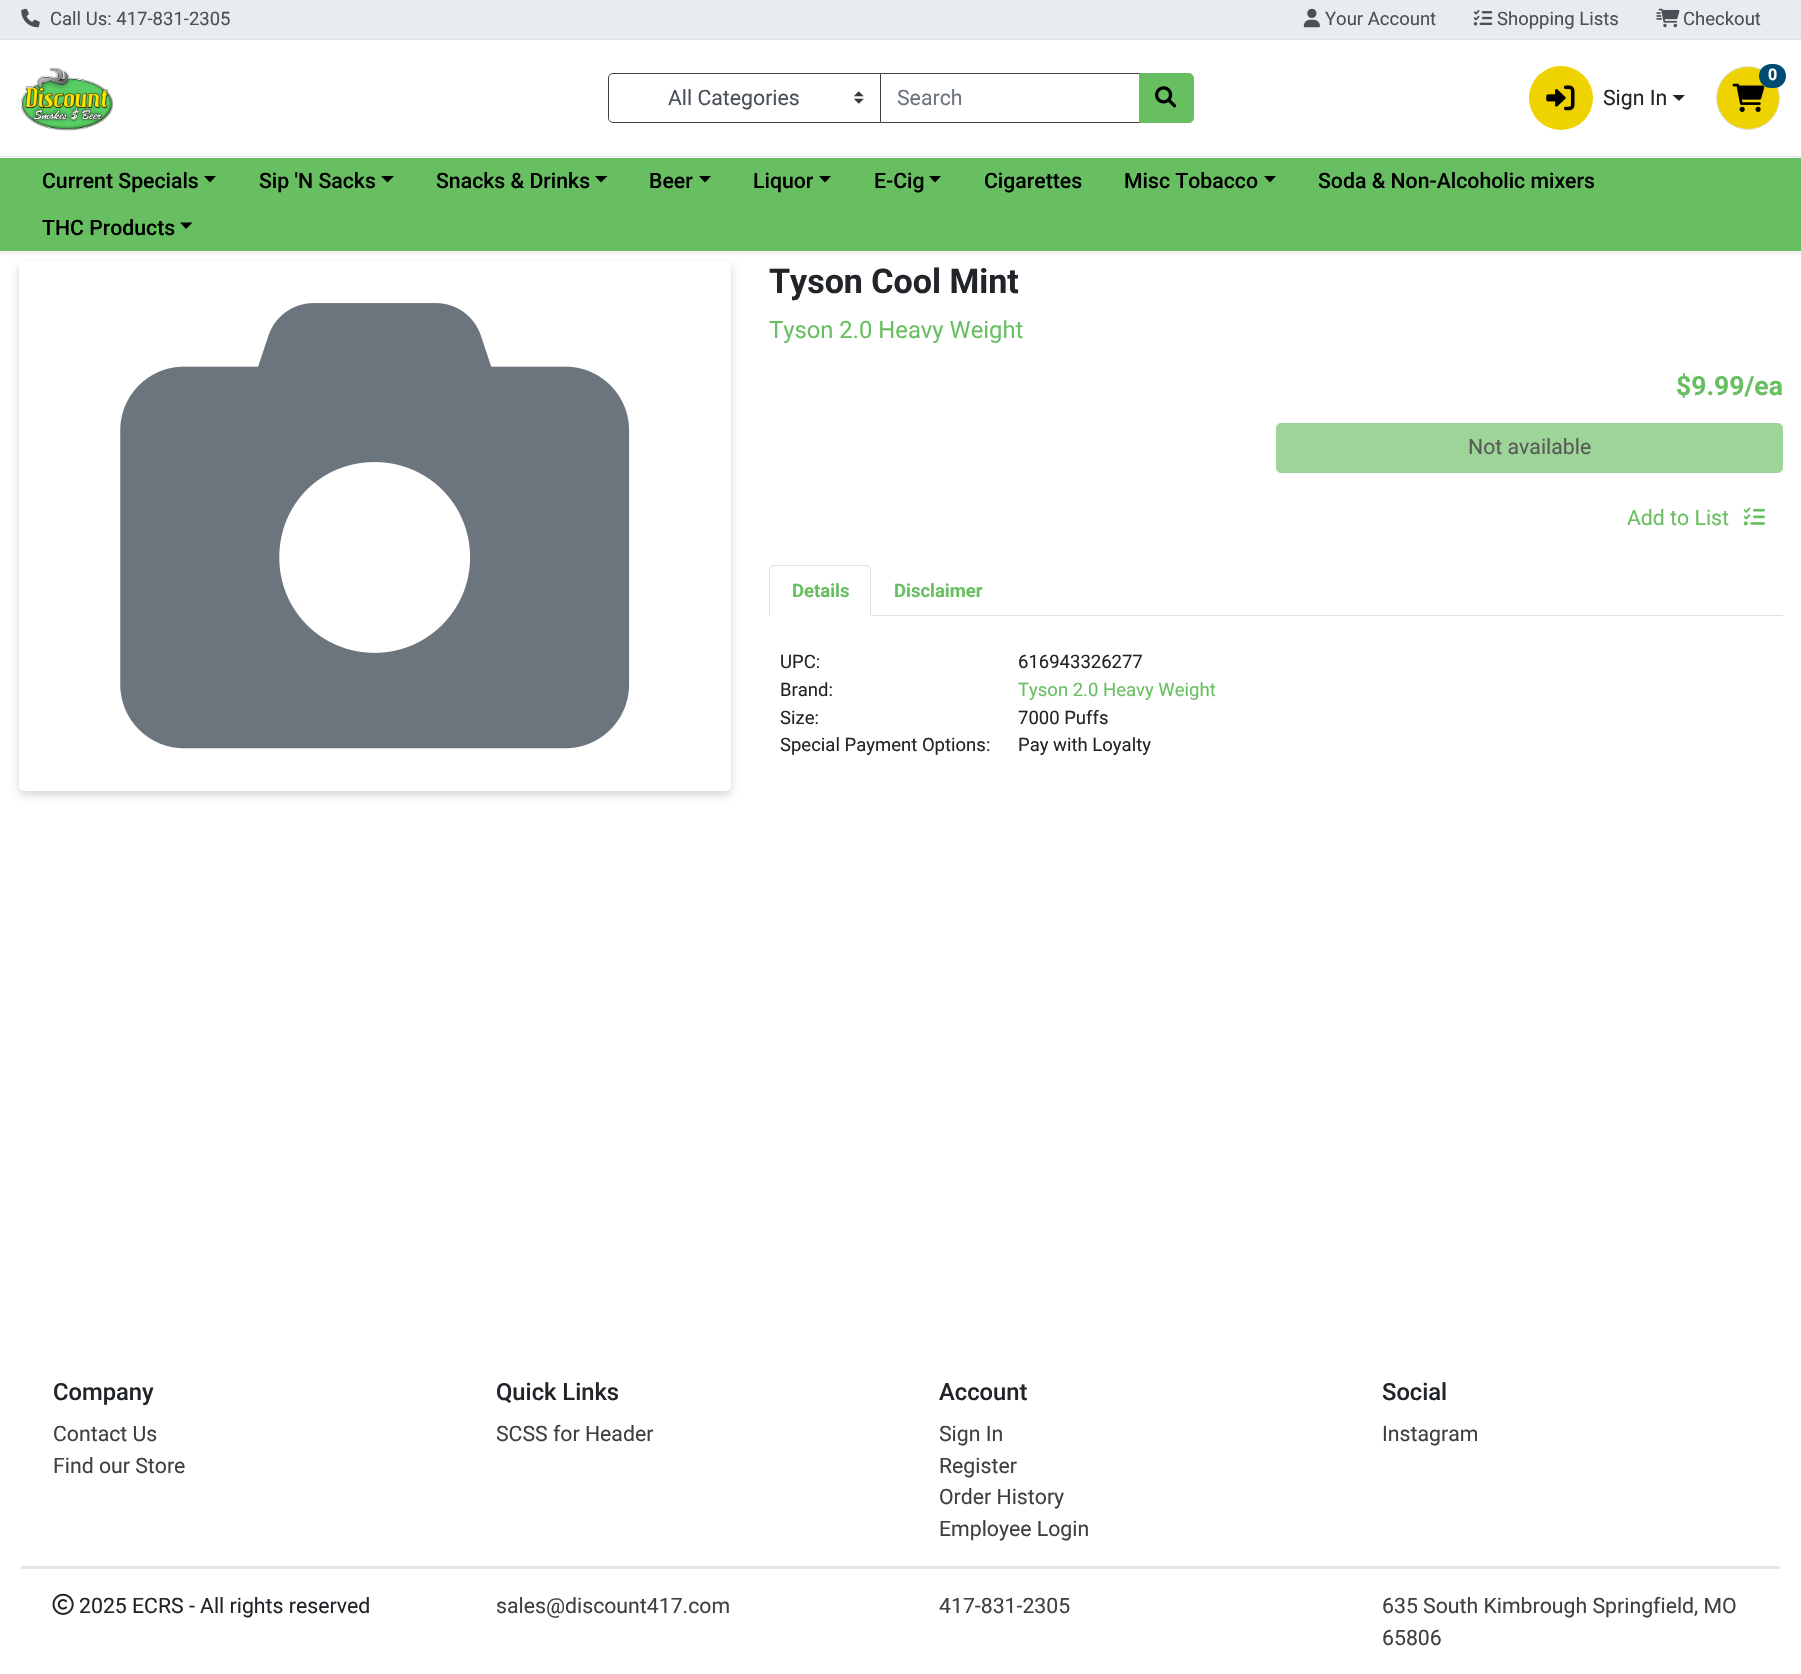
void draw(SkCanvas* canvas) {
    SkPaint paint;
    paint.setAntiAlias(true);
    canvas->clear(0xFFFFFFFF);
    paint.setColor(0x29000000);
    paint.setMaskFilter(SkMaskFilter::MakeBlur(kNormal_SkBlurStyle, 4));
    canvas->drawRoundRect(SkRect::MakeXYWH(19, 265, 712, 530), 5, 5, paint);
    paint.setMaskFilter(nullptr);
    paint.setColor(0xFFFFFFFF);
    canvas->drawRoundRect(SkRect::MakeXYWH(19, 261, 712, 530), 5, 5, paint);
    canvas->save();
    canvas->clipRect(SkRect::MakeXYWH(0, 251, 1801, 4));
    paint.setColor(0x12000000);
    paint.setMaskFilter(SkMaskFilter::MakeBlur(kNormal_SkBlurStyle, 2.5f));
    canvas->drawRect(SkRect::MakeXYWH(0, 3, 1801, 251), paint);
    paint.setMaskFilter(nullptr);
    canvas->restore();
    paint.setColor(0xFFE9ECEF);
    canvas->drawRect(SkRect::MakeXYWH(0, 0, 1801, 39), paint);
    paint.setColor(0xFFDEE2E6);
    canvas->drawRect(SkRect::MakeXYWH(0, 39, 1801, 1), paint);
    canvas->drawImageRect(SkImages::DeferredFromEncodedData(SkData::MakeFromFileName("img1.png")), SkRect::MakeXYWH(21, 8, 19, 20), SkSamplingOptions());
    SkFont font1(fontMgr->matchFamilyStyle("Roboto", SkFontStyle::Normal()), 18.5f);
    font1.setSubpixel(true);
    paint.setColor(0xFF495057);
    canvas->drawString("Call Us: 417-831-2305", 50, 25, font1, paint);
    canvas->drawImageRect(SkImages::DeferredFromEncodedData(SkData::MakeFromFileName("img2.png")), SkRect::MakeXYWH(1303, 8, 17, 20), SkSamplingOptions());
    canvas->drawString("Your Account", 1325, 25, font1, paint);
    canvas->drawImageRect(SkImages::DeferredFromEncodedData(SkData::MakeFromFileName("img3.png")), SkRect::MakeXYWH(1473, 10, 20, 16), SkSamplingOptions());
    canvas->drawString("Shopping Lists", 1497, 25, font1, paint);
    canvas->drawImageRect(SkImages::DeferredFromEncodedData(SkData::MakeFromFileName("img4.png")), SkRect::MakeXYWH(1656, 8, 24, 20), SkSamplingOptions());
    canvas->drawString("Checkout", 1683, 25, font1, paint);
    paint.setColor(0xFFDEE2E6);
    canvas->drawRect(SkRect::MakeXYWH(0, 156, 1801, 1), paint);
    canvas->drawImageRect(SkImages::DeferredFromEncodedData(SkData::MakeFromFileName("img5.png")), SkRect::MakeXYWH(21, 67, 92, 64), SkSamplingOptions());
    paint.setStyle(SkPaint::kStroke_Style);
    paint.setStrokeWidth(1);
    paint.setColor(0xFF404040);
    canvas->drawRect(SkRect::MakeXYWH(880.5f, 73.5f, 259, 49), paint);
    paint.setStyle(SkPaint::kFill_Style);
    paint.setColor(0xFFFFFFFF);
    canvas->drawPath(SkPathBuilder().moveTo(613, 73).lineTo(881, 73).lineTo(881, 123).lineTo(613, 123).cubicTo(610, 123, 608, 121, 608, 118).lineTo(608, 78).cubicTo(608, 75, 610, 73, 613, 73).close().detach(), paint);
    canvas->drawImageRect(SkImages::DeferredFromEncodedData(SkData::MakeFromFileName("img6.png")), SkRect::MakeXYWH(854, 91, 10, 13), SkSamplingOptions());
    paint.setStyle(SkPaint::kStroke_Style);
    paint.setColor(0xFF404040);
    canvas->drawPath(SkPathBuilder().moveTo(613, 73.5f).lineTo(880.5f, 73.5f).lineTo(880.5f, 122.5f).lineTo(613, 122.5f).cubicTo(610.5f, 122.5f, 608.5f, 120.5f, 608.5f, 118).lineTo(608.5f, 78).cubicTo(608.5f, 75.5f, 610.5f, 73.5f, 613, 73.5f).close().detach(), paint);
    SkFont font2(fontMgr->matchFamilyStyle("Roboto", SkFontStyle::Normal()), 21.25f);
    font2.setSubpixel(true);
    paint.setStyle(SkPaint::kFill_Style);
    paint.setColor(0xFF495057);
    canvas->drawString("All Categories", 668, 105, font2, paint);
    paint.setColor(0xFF6C757D);
    canvas->drawString("Search", 897, 105, font2, paint);
    paint.setColor(0xFF68BF61);
    canvas->drawPath(SkPathBuilder().moveTo(1139.5f, 73.5f).lineTo(1189, 73.5f).cubicTo(1191.5f, 73.5f, 1193.5f, 75.5f, 1193.5f, 78).lineTo(1193.5f, 118).cubicTo(1193.5f, 120.5f, 1191.5f, 122.5f, 1189, 122.5f).lineTo(1139.5f, 122.5f).close().detach(), paint);
    paint.setStyle(SkPaint::kStroke_Style);
    canvas->drawPath(SkPathBuilder().moveTo(1139.5f, 73.5f).lineTo(1189, 73.5f).cubicTo(1191.5f, 73.5f, 1193.5f, 75.5f, 1193.5f, 78).lineTo(1193.5f, 118).cubicTo(1193.5f, 120.5f, 1191.5f, 122.5f, 1189, 122.5f).lineTo(1139.5f, 122.5f).close().detach(), paint);
    canvas->drawImageRect(SkImages::DeferredFromEncodedData(SkData::MakeFromFileName("img7.png")), SkRect::MakeXYWH(1155, 86, 22, 22), SkSamplingOptions());
    paint.setStyle(SkPaint::kFill_Style);
    paint.setColor(0xFFEFD301);
    canvas->drawCircle(1748, 98, 31.5f, paint);
    paint.setStyle(SkPaint::kStroke_Style);
    paint.setColor(0xFFDEE2E6);
    canvas->drawCircle(1748, 98, 31.5f, paint);
    canvas->drawImageRect(SkImages::DeferredFromEncodedData(SkData::MakeFromFileName("img8.png")), SkRect::MakeXYWH(1732, 83, 33, 29), SkSamplingOptions());
    paint.setStyle(SkPaint::kFill_Style);
    paint.setColor(0xFF004B73);
    canvas->drawRoundRect(SkRect::MakeXYWH(1759, 64, 27, 24), 12, 12, paint);
    SkFont font3(fontMgr->matchFamilyStyle("Roboto", SkFontStyle::Bold()), 16);
    font3.setSubpixel(true);
    paint.setColor(0xFFFFFFFF);
    canvas->drawString("0", 1768, 80, font3, paint);
    paint.setColor(0xFFEFD301);
    canvas->drawCircle(1561, 98, 32, paint);
    canvas->drawImageRect(SkImages::DeferredFromEncodedData(SkData::MakeFromFileName("img9.png")), SkRect::MakeXYWH(1546, 85, 29, 26), SkSamplingOptions());
    paint.setColor(0xFF212529);
    canvas->drawString("Sign In", 1603, 105, font2, paint);
    canvas->drawPath(SkPathBuilder().moveTo(1672.5f, 95).lineTo(1685, 95).lineTo(1679, 101).close().detach(), paint);
    paint.setColor(0xFF68BF61);
    canvas->drawRect(SkRect::MakeXYWH(0, 158, 1801, 93), paint);
    SkFont font4(fontMgr->matchFamilyStyle("Roboto", SkFontStyle(500, SkFontStyle::kNormal_Width, SkFontStyle::kUpright_Slant)), 21.25f);
    font4.setSubpixel(true);
    paint.setColor(0xFF000000);
    canvas->drawString("Current Specials", 42, 188, font4, paint);
    canvas->drawPath(SkPathBuilder().moveTo(204, 176).lineTo(216, 176).lineTo(210, 182.5f).close().detach(), paint);
    canvas->drawString("Sip 'N Sacks", 259, 188, font4, paint);
    canvas->drawPath(SkPathBuilder().moveTo(381, 176).lineTo(394, 176).lineTo(387.5f, 182.5f).close().detach(), paint);
    canvas->drawString("Snacks & Drinks", 436, 188, font4, paint);
    canvas->drawPath(SkPathBuilder().moveTo(595, 176).lineTo(607.5f, 176).lineTo(601, 182.5f).close().detach(), paint);
    canvas->drawString("Beer", 649, 188, font4, paint);
    canvas->drawPath(SkPathBuilder().moveTo(699, 176).lineTo(711, 176).lineTo(705, 182.5f).close().detach(), paint);
    canvas->drawString("Liquor", 753, 188, font4, paint);
    canvas->drawPath(SkPathBuilder().moveTo(819, 176).lineTo(831, 176).lineTo(825, 182.5f).close().detach(), paint);
    canvas->drawString("E-Cig", 874, 188, font4, paint);
    canvas->drawPath(SkPathBuilder().moveTo(929, 176).lineTo(941, 176).lineTo(935, 182.5f).close().detach(), paint);
    canvas->drawString("Cigarettes", 984, 188, font4, paint);
    canvas->drawString("Misc Tobacco", 1124, 188, font4, paint);
    canvas->drawPath(SkPathBuilder().moveTo(1264, 176).lineTo(1276, 176).lineTo(1270, 182.5f).close().detach(), paint);
    canvas->drawString("Soda & Non-Alcoholic mixers", 1318, 188, font4, paint);
    canvas->drawString("THC Products", 42, 235, font4, paint);
    canvas->drawPath(SkPathBuilder().moveTo(180, 222.5f).lineTo(192.5f, 222.5f).lineTo(186, 229).close().detach(), paint);
    canvas->drawImageRect(SkImages::DeferredFromEncodedData(SkData::MakeFromFileName("img10.png")), SkRect::MakeXYWH(120, 303, 510, 446), SkSamplingOptions());
    SkFont font5(fontMgr->matchFamilyStyle("Roboto", SkFontStyle::Bold()), 34);
    font5.setSubpixel(true);
    paint.setColor(0xFF212529);
    canvas->drawString("Tyson Cool Mint", 769, 293, font5, paint);
    SkFont font6(fontMgr->matchFamilyStyle("Roboto", SkFontStyle::Normal()), 23.8f);
    font6.setSubpixel(true);
    paint.setColor(0xFF68BF61);
    canvas->drawString("Tyson 2.0 Heavy Weight", 769, 338, font6, paint);
    SkFont font7(fontMgr->matchFamilyStyle("Roboto", SkFontStyle::Bold()), 26.5f);
    font7.setSubpixel(true);
    canvas->drawString("$9.99/ea", 1676, 395, font7, paint);
    paint.setColor(0xFF9DD598);
    canvas->drawRoundRect(SkRect::MakeXYWH(1276.5f, 423.5f, 506, 49), 4.5f, 4.5f, paint);
    paint.setStyle(SkPaint::kStroke_Style);
    canvas->drawRoundRect(SkRect::MakeXYWH(1276.5f, 423.5f, 506, 49), 4.5f, 4.5f, paint);
    paint.setStyle(SkPaint::kFill_Style);
    paint.setColor(0xFF595959);
    canvas->drawString("Not available", 1468, 454, font2, paint);
    paint.setColor(0xFF68BF61);
    canvas->drawString("Add to List", 1627, 525, font2, paint);
    canvas->drawImageRect(SkImages::DeferredFromEncodedData(SkData::MakeFromFileName("img11.png")), SkRect::MakeXYWH(1743, 507, 22, 19), SkSamplingOptions());
    paint.setColor(0xFFDEE2E6);
    canvas->drawRect(SkRect::MakeXYWH(871, 615, 912, 1), paint);
    canvas->drawPath(SkPathBuilder().moveTo(774, 565).cubicTo(772, 565, 771, 566, 770, 567).lineTo(771, 567).lineTo(774, 566).lineTo(866, 566).lineTo(869, 567).lineTo(870, 567).cubicTo(869, 566, 868, 565, 866, 565).close().detach(), paint);
    canvas->drawPath(SkPathBuilder().moveTo(870, 567).cubicTo(871, 567, 871, 569, 871, 570).lineTo(871, 616).lineTo(870, 615).lineTo(870, 570).cubicTo(870, 569, 870, 568, 869, 567).close().detach(), paint);
    paint.setColor(0xFFFFFFFF);
    canvas->drawPath(SkPathBuilder().moveTo(871, 616).lineTo(870, 615).lineTo(770, 615).lineTo(769, 616).close().detach(), paint);
    paint.setColor(0xFFDEE2E6);
    canvas->drawPath(SkPathBuilder().moveTo(770, 567).cubicTo(769, 567, 769, 569, 769, 570).lineTo(769, 616).lineTo(770, 615).lineTo(770, 570).cubicTo(770, 569, 770, 568, 771, 567).close().detach(), paint);
    SkFont font8(fontMgr->matchFamilyStyle("Roboto", SkFontStyle::Bold()), 18.5f);
    font8.setSubpixel(true);
    paint.setColor(0xFF68BF61);
    canvas->drawString("Details", 792, 597, font8, paint);
    canvas->drawString("Disclaimer", 894, 597, font8, paint);
    paint.setColor(0xFF212529);
    canvas->drawString("UPC:", 780, 668, font1, paint);
    canvas->drawString("616943326277", 1018, 668, font1, paint);
    canvas->drawString("Brand:", 780, 696, font1, paint);
    paint.setColor(0xFF68BF61);
    canvas->drawString("Tyson 2.0 Heavy Weight", 1018, 696, font1, paint);
    paint.setColor(0xFF212529);
    canvas->drawString("Size:", 780, 724, font1, paint);
    canvas->drawString("7000 Puffs", 1018, 724, font1, paint);
    canvas->drawString("Special Payment Options:", 780, 751, font1, paint);
    canvas->drawString("Pay with Loyalty", 1018, 751, font1, paint);
    SkFont font9(fontMgr->matchFamilyStyle("Roboto", SkFontStyle(500, SkFontStyle::kNormal_Width, SkFontStyle::kUpright_Slant)), 23.75f);
    font9.setSubpixel(true);
    canvas->drawString("Company", 53, 1400, font9, paint);
    paint.setColor(0xFF404040);
    canvas->drawString("Contact Us", 53, 1441, font2, paint);
    canvas->drawString("Find our Store", 53, 1473, font2, paint);
    paint.setColor(0xFF212529);
    canvas->drawString("Quick Links", 496, 1400, font9, paint);
    paint.setColor(0xFF404040);
    canvas->drawString("SCSS for Header", 496, 1441, font2, paint);
    paint.setColor(0xFF212529);
    canvas->drawString("Account", 939, 1400, font9, paint);
    paint.setColor(0xFF404040);
    canvas->drawString("Sign In", 939, 1441, font2, paint);
    canvas->drawString("Register", 939, 1473, font2, paint);
    canvas->drawString("Order History", 939, 1504, font2, paint);
    canvas->drawString("Employee Login", 939, 1536, font2, paint);
    paint.setColor(0xFF212529);
    canvas->drawString("Social", 1382, 1400, font9, paint);
    paint.setColor(0xFF404040);
    canvas->drawString("Instagram", 1382, 1441, font2, paint);
    paint.setColor(0xFFE6E6E6);
    canvas->drawRect(SkRect::MakeXYWH(21, 1566, 1759, 3), paint);
    canvas->drawImageRect(SkImages::DeferredFromEncodedData(SkData::MakeFromFileName("img12.png")), SkRect::MakeXYWH(52, 1593, 22, 22), SkSamplingOptions());
    paint.setColor(0xFF212529);
    canvas->drawString("2025 ECRS - All rights reserved", 79, 1613, font2, paint);
    paint.setColor(0xFF404040);
    canvas->drawString("sales@discount417.com", 496, 1613, font2, paint);
    canvas->drawString("417-831-2305", 939, 1613, font2, paint);
    canvas->drawString("635 South Kimbrough Springfield, MO", 1382, 1613, font2, paint);
    canvas->drawString("65806", 1382, 1645, font2, paint);
}
